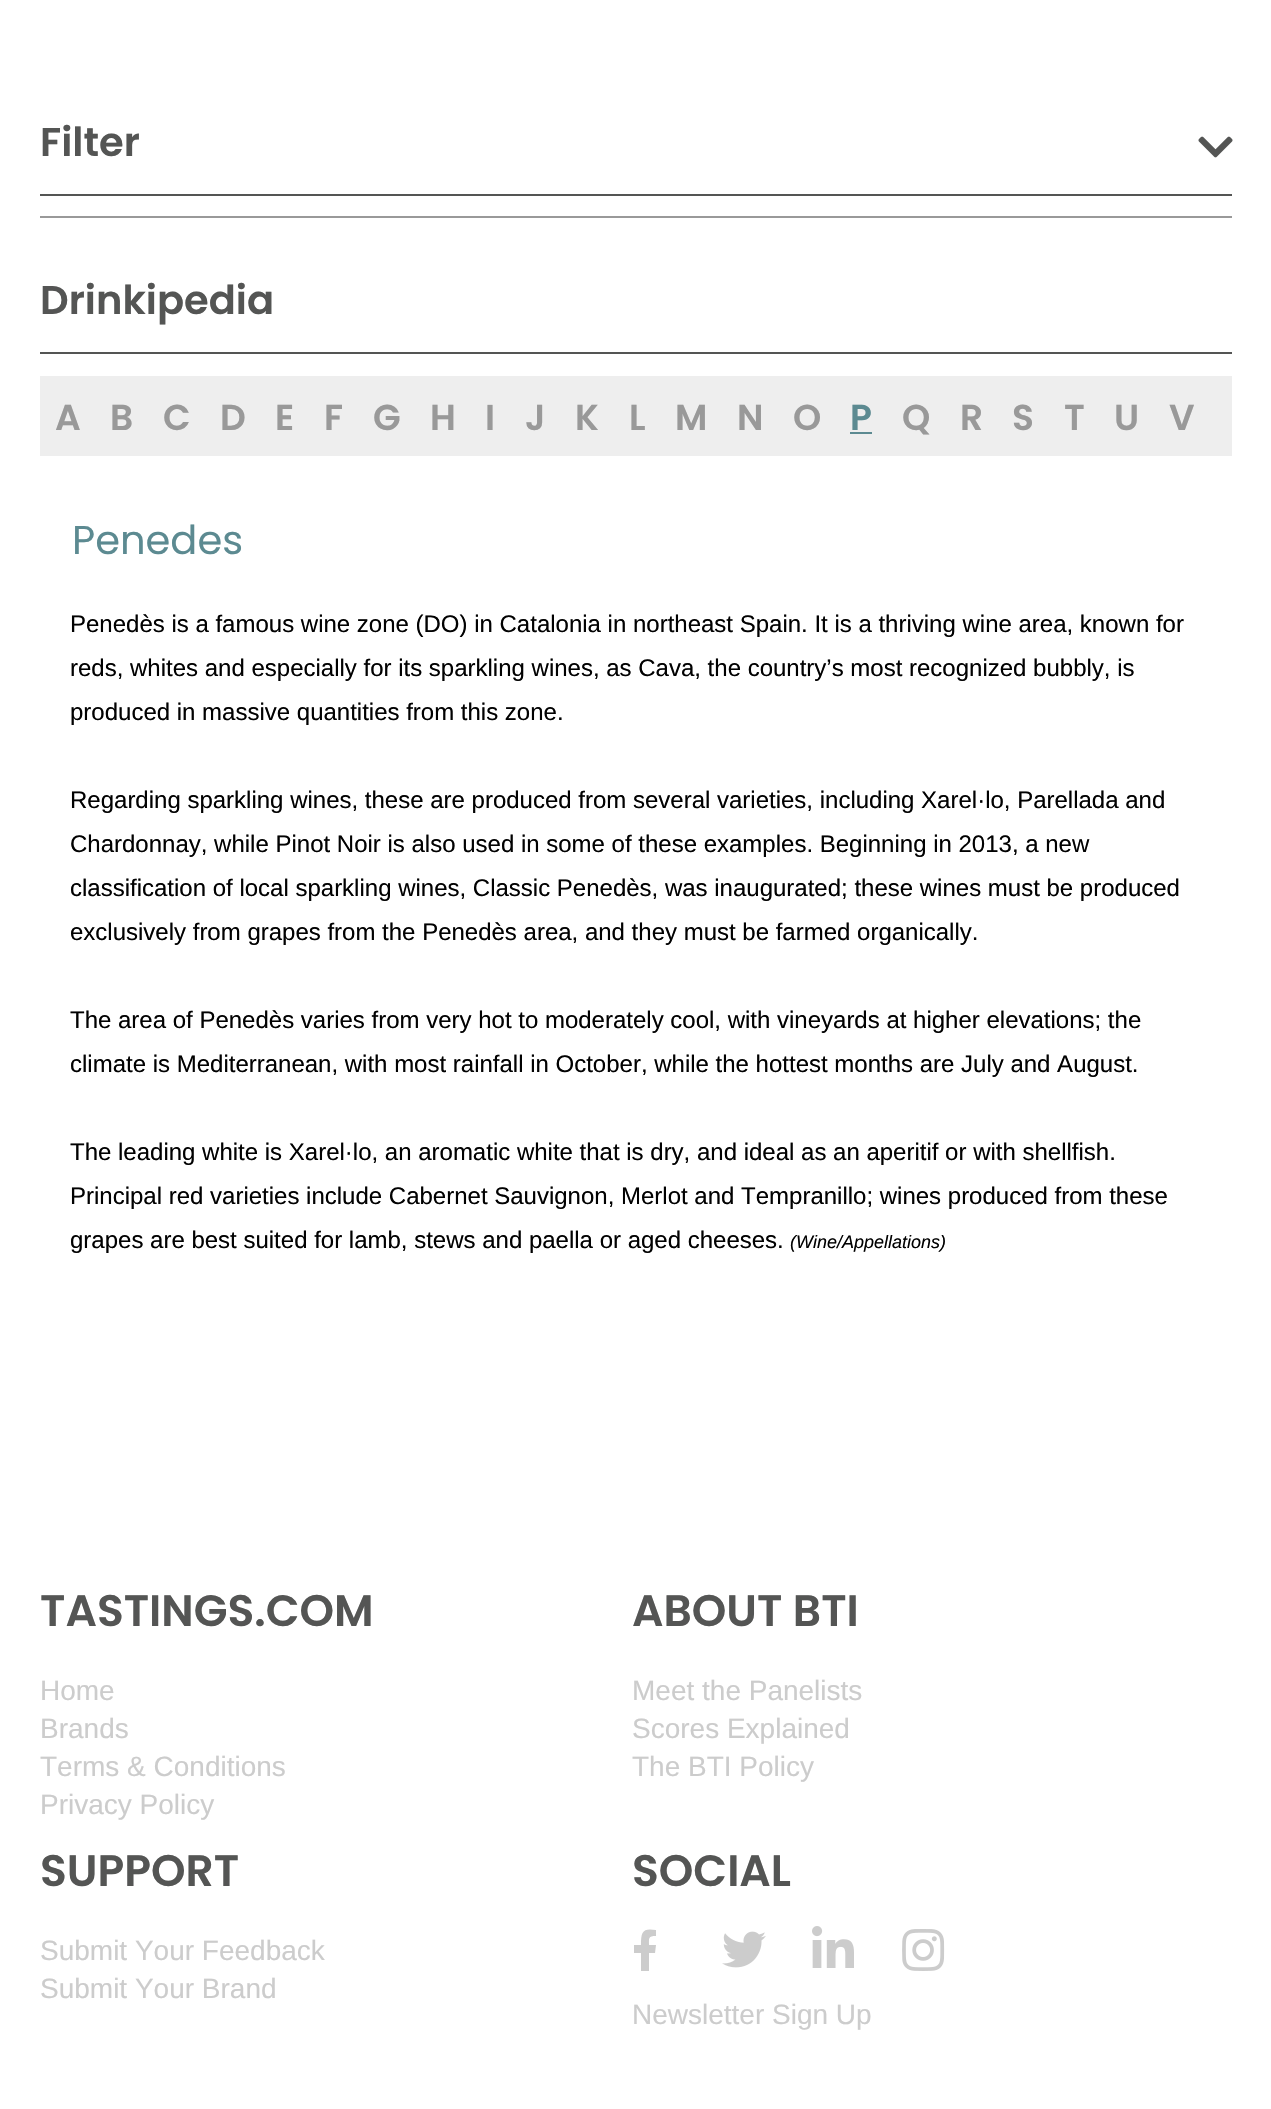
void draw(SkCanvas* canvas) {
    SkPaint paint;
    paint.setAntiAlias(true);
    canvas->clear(0xFFFFFFFF);
    paint.setColor(0xFF545554);
    canvas->drawRect(SkRect::MakeXYWH(40, 194, 1192, 2), paint);
    SkFont font1(fontMgr->matchFamilyStyle("Poppins", SkFontStyle(600, SkFontStyle::kNormal_Width, SkFontStyle::kUpright_Slant)), 40);
    font1.setSubpixel(true);
    canvas->drawString("Filter", 40, 156, font1, paint);
    canvas->drawImageRect(SkImages::DeferredFromEncodedData(SkData::MakeFromFileName("img1.png")), SkRect::MakeXYWH(1198, 136, 35, 22), SkSamplingOptions());
    paint.setColor(0xFF999999);
    canvas->drawRect(SkRect::MakeXYWH(40, 216, 1192, 2), paint);
    paint.setColor(0xFF545554);
    canvas->drawRect(SkRect::MakeXYWH(40, 352, 1192, 2), paint);
    canvas->drawString("Drinkipedia", 40, 314, font1, paint);
    paint.setColor(0xFFEEEEEE);
    canvas->drawRect(SkRect::MakeXYWH(40, 376, 1192, 80), paint);
    SkFont font2(fontMgr->matchFamilyStyle("Poppins", SkFontStyle(600, SkFontStyle::kNormal_Width, SkFontStyle::kUpright_Slant)), 36);
    font2.setSubpixel(true);
    paint.setColor(0xFF999999);
    canvas->drawString("A", 55, 430, font2, paint);
    canvas->drawString("B", 110, 430, font2, paint);
    canvas->drawString("C", 163, 430, font2, paint);
    canvas->drawString("D", 220, 430, font2, paint);
    canvas->drawString("E", 275, 430, font2, paint);
    canvas->drawString("F", 324, 430, font2, paint);
    canvas->drawString("G", 373, 430, font2, paint);
    canvas->drawString("H", 430, 430, font2, paint);
    canvas->drawString("I", 485, 430, font2, paint);
    canvas->drawString("J", 525, 430, font2, paint);
    canvas->drawString("K", 575, 430, font2, paint);
    canvas->drawString("L", 629, 430, font2, paint);
    canvas->drawString("M", 675, 430, font2, paint);
    canvas->drawString("N", 737, 430, font2, paint);
    canvas->drawString("O", 793, 430, font2, paint);
    paint.setColor(0xFF5C8A91);
    canvas->drawString("P", 850, 430, font2, paint);
    canvas->drawRect(SkRect::MakeXYWH(850, 432, 22, 2), paint);
    paint.setColor(0xFF999999);
    canvas->drawString("Q", 902, 430, font2, paint);
    canvas->drawString("R", 960, 430, font2, paint);
    canvas->drawString("S", 1012, 430, font2, paint);
    canvas->drawString("T", 1064, 430, font2, paint);
    canvas->drawString("U", 1114, 430, font2, paint);
    canvas->drawString("V", 1169, 430, font2, paint);
    SkFont font3(fontMgr->matchFamilyStyle("Poppins", SkFontStyle::Normal()), 40);
    font3.setSubpixel(true);
    paint.setColor(0xFF5C8A91);
    canvas->drawString("Penedes", 72, 554, font3, paint);
    SkFont font4(fontMgr->matchFamilyStyle("Liberation Sans", SkFontStyle::Normal()), 24);
    font4.setSubpixel(true);
    paint.setColor(0xFF010101);
    canvas->drawString("Penedès is a famous wine zone (DO) in Catalonia in northeast Spain. It is a thriving wine area, known for", 70, 632, font4, paint);
    canvas->drawString("reds, whites and especially for its sparkling wines, as Cava, the country’s most recognized bubbly, is", 70, 676, font4, paint);
    canvas->drawString("produced in massive quantities from this zone.", 70, 720, font4, paint);
    canvas->drawString("Regarding sparkling wines, these are produced from several varieties, including Xarel·lo, Parellada and", 70, 808, font4, paint);
    canvas->drawString("Chardonnay, while Pinot Noir is also used in some of these examples. Beginning in 2013, a new", 70, 852, font4, paint);
    canvas->drawString("classification of local sparkling wines, Classic Penedès, was inaugurated; these wines must be produced", 70, 896, font4, paint);
    canvas->drawString("exclusively from grapes from the Penedès area, and they must be farmed organically.", 70, 940, font4, paint);
    canvas->drawString("The area of Penedès varies from very hot to moderately cool, with vineyards at higher elevations; the", 70, 1028, font4, paint);
    canvas->drawString("climate is Mediterranean, with most rainfall in October, while the hottest months are July and August.", 70, 1072, font4, paint);
    canvas->drawString("The leading white is Xarel·lo, an aromatic white that is dry, and ideal as an aperitif or with shellfish.", 70, 1160, font4, paint);
    canvas->drawString("Principal red varieties include Cabernet Sauvignon, Merlot and Tempranillo; wines produced from these", 70, 1204, font4, paint);
    canvas->drawString("grapes are best suited for lamb, stews and paella or aged cheeses.", 70, 1248, font4, paint);
    SkFont font5(fontMgr->matchFamilyStyle("Liberation Sans", SkFontStyle::Italic()), 18);
    font5.setSubpixel(true);
    canvas->drawString("(Wine/Appellations)", 790, 1248, font5, paint);
    SkFont font6(fontMgr->matchFamilyStyle("Poppins", SkFontStyle(600, SkFontStyle::kNormal_Width, SkFontStyle::kUpright_Slant)), 44);
    font6.setSubpixel(true);
    paint.setColor(0xFF545554);
    canvas->drawString("TASTINGS.COM", 40, 1626, font6, paint);
    SkFont font7(fontMgr->matchFamilyStyle("Liberation Sans", SkFontStyle::Normal()), 28);
    font7.setSubpixel(true);
    paint.setColor(0xFFCCCCCC);
    canvas->drawString("Home", 40, 1700, font7, paint);
    canvas->drawString("Brands", 40, 1738, font7, paint);
    canvas->drawString("Terms & Conditions", 40, 1776, font7, paint);
    canvas->drawString("Privacy Policy", 40, 1814, font7, paint);
    paint.setColor(0xFF545554);
    canvas->drawString("ABOUT BTI", 632, 1626, font6, paint);
    paint.setColor(0xFFCCCCCC);
    canvas->drawString("Meet the Panelists", 632, 1700, font7, paint);
    canvas->drawString("Scores Explained", 632, 1738, font7, paint);
    canvas->drawString("The BTI Policy", 632, 1776, font7, paint);
    paint.setColor(0xFF545554);
    canvas->drawString("SUPPORT", 40, 1886, font6, paint);
    paint.setColor(0xFFCCCCCC);
    canvas->drawString("Submit Your Feedback", 40, 1960, font7, paint);
    canvas->drawString("Submit Your Brand", 40, 1998, font7, paint);
    paint.setColor(0xFF545554);
    canvas->drawString("SOCIAL", 632, 1886, font6, paint);
    paint.setColor(0xFFCCCCCC);
    canvas->drawPath(SkPathBuilder().moveTo(655, 1953).lineTo(649, 1953).lineTo(649, 1971).lineTo(641, 1971).lineTo(641, 1953).lineTo(634, 1953).lineTo(634, 1945).lineTo(641, 1945).cubicTo(641, 1931, 643, 1928, 656, 1930).lineTo(656, 1936).cubicTo(648, 1936, 649, 1938, 649, 1945).lineTo(656, 1945).close().detach(), paint);
    canvas->drawImageRect(SkImages::DeferredFromEncodedData(SkData::MakeFromFileName("img2.png")), SkRect::MakeXYWH(722, 1931, 44, 37), SkSamplingOptions());
    canvas->drawImageRect(SkImages::DeferredFromEncodedData(SkData::MakeFromFileName("img3.png")), SkRect::MakeXYWH(812, 1926, 42, 42), SkSamplingOptions());
    canvas->drawImageRect(SkImages::DeferredFromEncodedData(SkData::MakeFromFileName("img4.png")), SkRect::MakeXYWH(902, 1929, 43, 42), SkSamplingOptions());
    canvas->drawString("Newsletter Sign Up", 632, 2024, font7, paint);
}
